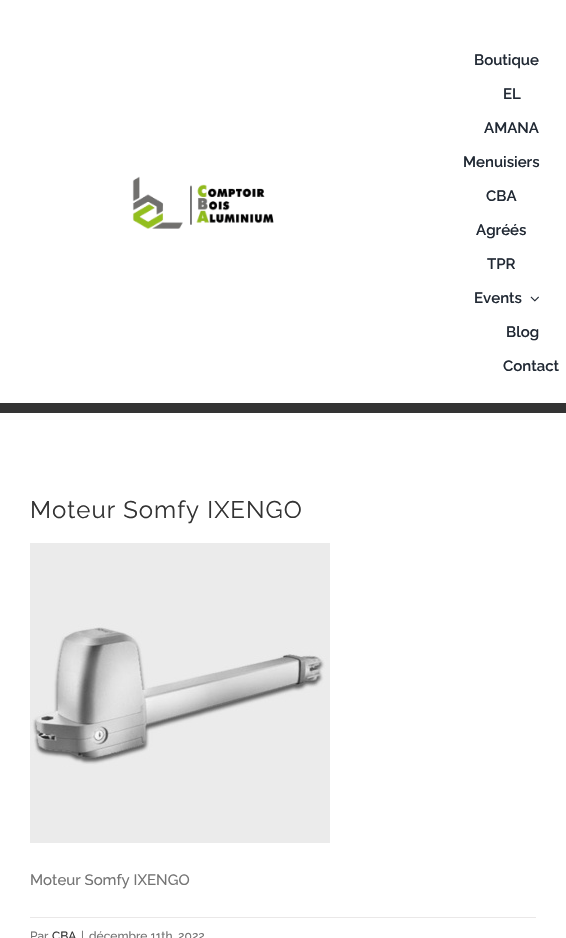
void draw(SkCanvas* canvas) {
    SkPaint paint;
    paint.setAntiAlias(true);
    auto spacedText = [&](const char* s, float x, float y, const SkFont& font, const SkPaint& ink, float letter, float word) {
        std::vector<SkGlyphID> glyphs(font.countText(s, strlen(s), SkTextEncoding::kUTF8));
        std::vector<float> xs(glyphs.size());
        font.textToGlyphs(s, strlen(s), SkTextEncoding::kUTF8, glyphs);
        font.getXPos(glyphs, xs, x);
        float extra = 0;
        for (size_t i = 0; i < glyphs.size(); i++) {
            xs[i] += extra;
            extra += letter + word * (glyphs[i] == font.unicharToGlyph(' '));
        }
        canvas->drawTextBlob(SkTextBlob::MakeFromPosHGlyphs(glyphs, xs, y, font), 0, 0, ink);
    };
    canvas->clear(0xFFFFFFFF);
    canvas->drawImageRect(SkImages::DeferredFromEncodedData(SkData::MakeFromFileName("img1.png")), SkRect::MakeXYWH(132, 176, 142, 53), SkSamplingOptions());
    SkFont font1(fontMgr->matchFamilyStyle("Raleway", SkFontStyle(600, SkFontStyle::kNormal_Width, SkFontStyle::kUpright_Slant)), 15);
    font1.setSubpixel(true);
    paint.setColor(0xFF212934);
    canvas->drawString("Boutique", 474, 65, font1, paint);
    canvas->drawString("EL", 503, 99, font1, paint);
    canvas->drawString("AMANA", 484, 133, font1, paint);
    canvas->drawString("Menuisiers", 463, 167, font1, paint);
    canvas->drawString("CBA", 486, 201, font1, paint);
    canvas->drawString("Agréés", 476, 235, font1, paint);
    canvas->drawString("TPR", 487, 269, font1, paint);
    canvas->drawString("Events", 474, 303, font1, paint);
    canvas->drawImageRect(SkImages::DeferredFromEncodedData(SkData::MakeFromFileName("img2.png")), SkRect::MakeXYWH(530, 296, 9, 6), SkSamplingOptions());
    canvas->drawString("Blog", 506, 337, font1, paint);
    canvas->drawString("Contact", 503, 371, font1, paint);
    paint.setColor(0xFF333333);
    canvas->drawRect(SkRect::MakeXYWH(0, 403, 566, 10), paint);
    SkFont font2(fontMgr->matchFamilyStyle("Raleway", SkFontStyle::Normal()), 24);
    font2.setSubpixel(true);
    spacedText("Moteur Somfy IXENGO", 30, 518, font2, paint, 1, 0);
    canvas->drawImageRect(SkImages::DeferredFromEncodedData(SkData::MakeFromFileName("img3.png")), SkRect::MakeXYWH(30, 543, 300, 300), SkSamplingOptions());
    SkFont font3(fontMgr->matchFamilyStyle("Raleway", SkFontStyle(500, SkFontStyle::kNormal_Width, SkFontStyle::kUpright_Slant)), 15);
    font3.setSubpixel(true);
    paint.setColor(0xFF747474);
    canvas->drawString("Moteur Somfy IXENGO", 30, 885, font3, paint);
    paint.setColor(0xFFEAE8E8);
    canvas->drawRect(SkRect::MakeXYWH(30, 917, 506, 1), paint);
    SkFont font4(fontMgr->matchFamilyStyle("Raleway", SkFontStyle(500, SkFontStyle::kNormal_Width, SkFontStyle::kUpright_Slant)), 12);
    font4.setSubpixel(true);
    paint.setColor(0xFF747474);
    canvas->drawString("Par", 30, 940, font4, paint);
    paint.setColor(0xFF333333);
    canvas->drawString("CBA", 52, 940, font4, paint);
    paint.setColor(0xFF747474);
    canvas->drawString("|", 81, 940, font4, paint);
    canvas->drawString("décembre 11th, 2022", 89, 940, font4, paint);
}
